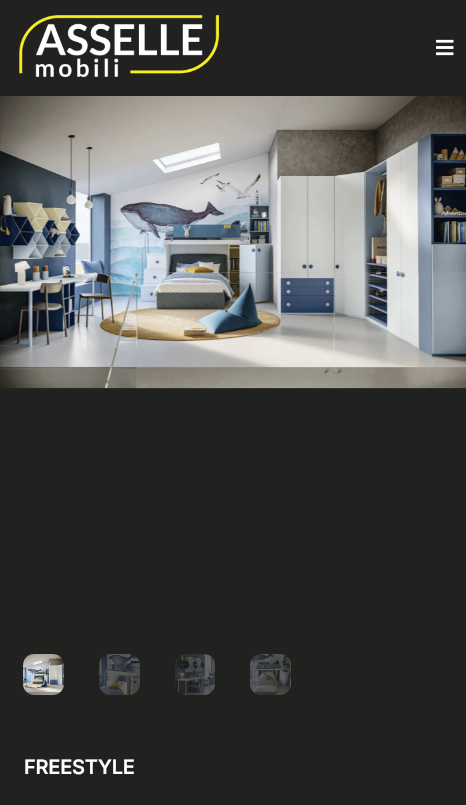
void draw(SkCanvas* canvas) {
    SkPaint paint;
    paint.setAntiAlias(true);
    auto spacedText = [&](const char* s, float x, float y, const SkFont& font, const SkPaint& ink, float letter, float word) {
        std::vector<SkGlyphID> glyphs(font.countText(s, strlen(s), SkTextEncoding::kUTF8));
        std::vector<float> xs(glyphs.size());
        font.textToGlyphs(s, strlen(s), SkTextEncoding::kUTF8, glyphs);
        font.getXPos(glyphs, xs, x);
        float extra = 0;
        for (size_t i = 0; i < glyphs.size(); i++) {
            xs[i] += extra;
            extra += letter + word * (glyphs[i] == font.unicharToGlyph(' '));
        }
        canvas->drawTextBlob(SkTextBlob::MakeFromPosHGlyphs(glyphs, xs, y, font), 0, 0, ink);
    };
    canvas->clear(0xFF212120);
    canvas->drawImageRect(SkImages::DeferredFromEncodedData(SkData::MakeFromFileName("img1.png")), SkRect::MakeXYWH(19, 15, 200, 63), SkSamplingOptions());
    canvas->drawImageRect(SkImages::DeferredFromEncodedData(SkData::MakeFromFileName("img2.png")), SkRect::MakeXYWH(436, 39, 18, 17), SkSamplingOptions());
    canvas->drawImageRect(SkImages::DeferredFromEncodedData(SkData::MakeFromFileName("img3.png")), SkRect::MakeXYWH(0, 96, 466, 293), SkSamplingOptions());
    canvas->drawImageRect(SkImages::DeferredFromEncodedData(SkData::MakeFromFileName("img4.png")), SkRect::MakeXYWH(23, 654, 41, 41), SkSamplingOptions());
    canvas->drawImageRect(SkImages::DeferredFromEncodedData(SkData::MakeFromFileName("img5.png")), SkRect::MakeXYWH(99, 654, 41, 41), SkSamplingOptions());
    canvas->drawImageRect(SkImages::DeferredFromEncodedData(SkData::MakeFromFileName("img6.png")), SkRect::MakeXYWH(175, 654, 40, 41), SkSamplingOptions());
    canvas->drawImageRect(SkImages::DeferredFromEncodedData(SkData::MakeFromFileName("img7.png")), SkRect::MakeXYWH(250, 654, 41, 41), SkSamplingOptions());
    SkFont font1(fontMgr->matchFamilyStyle("Inter", SkFontStyle(600, SkFontStyle::kNormal_Width, SkFontStyle::kUpright_Slant)), 20);
    font1.setSubpixel(true);
    paint.setColor(0xFFFFFFFF);
    spacedText("FREESTYLE", 24, 774, font1, paint, -0.25f, 0);
}
